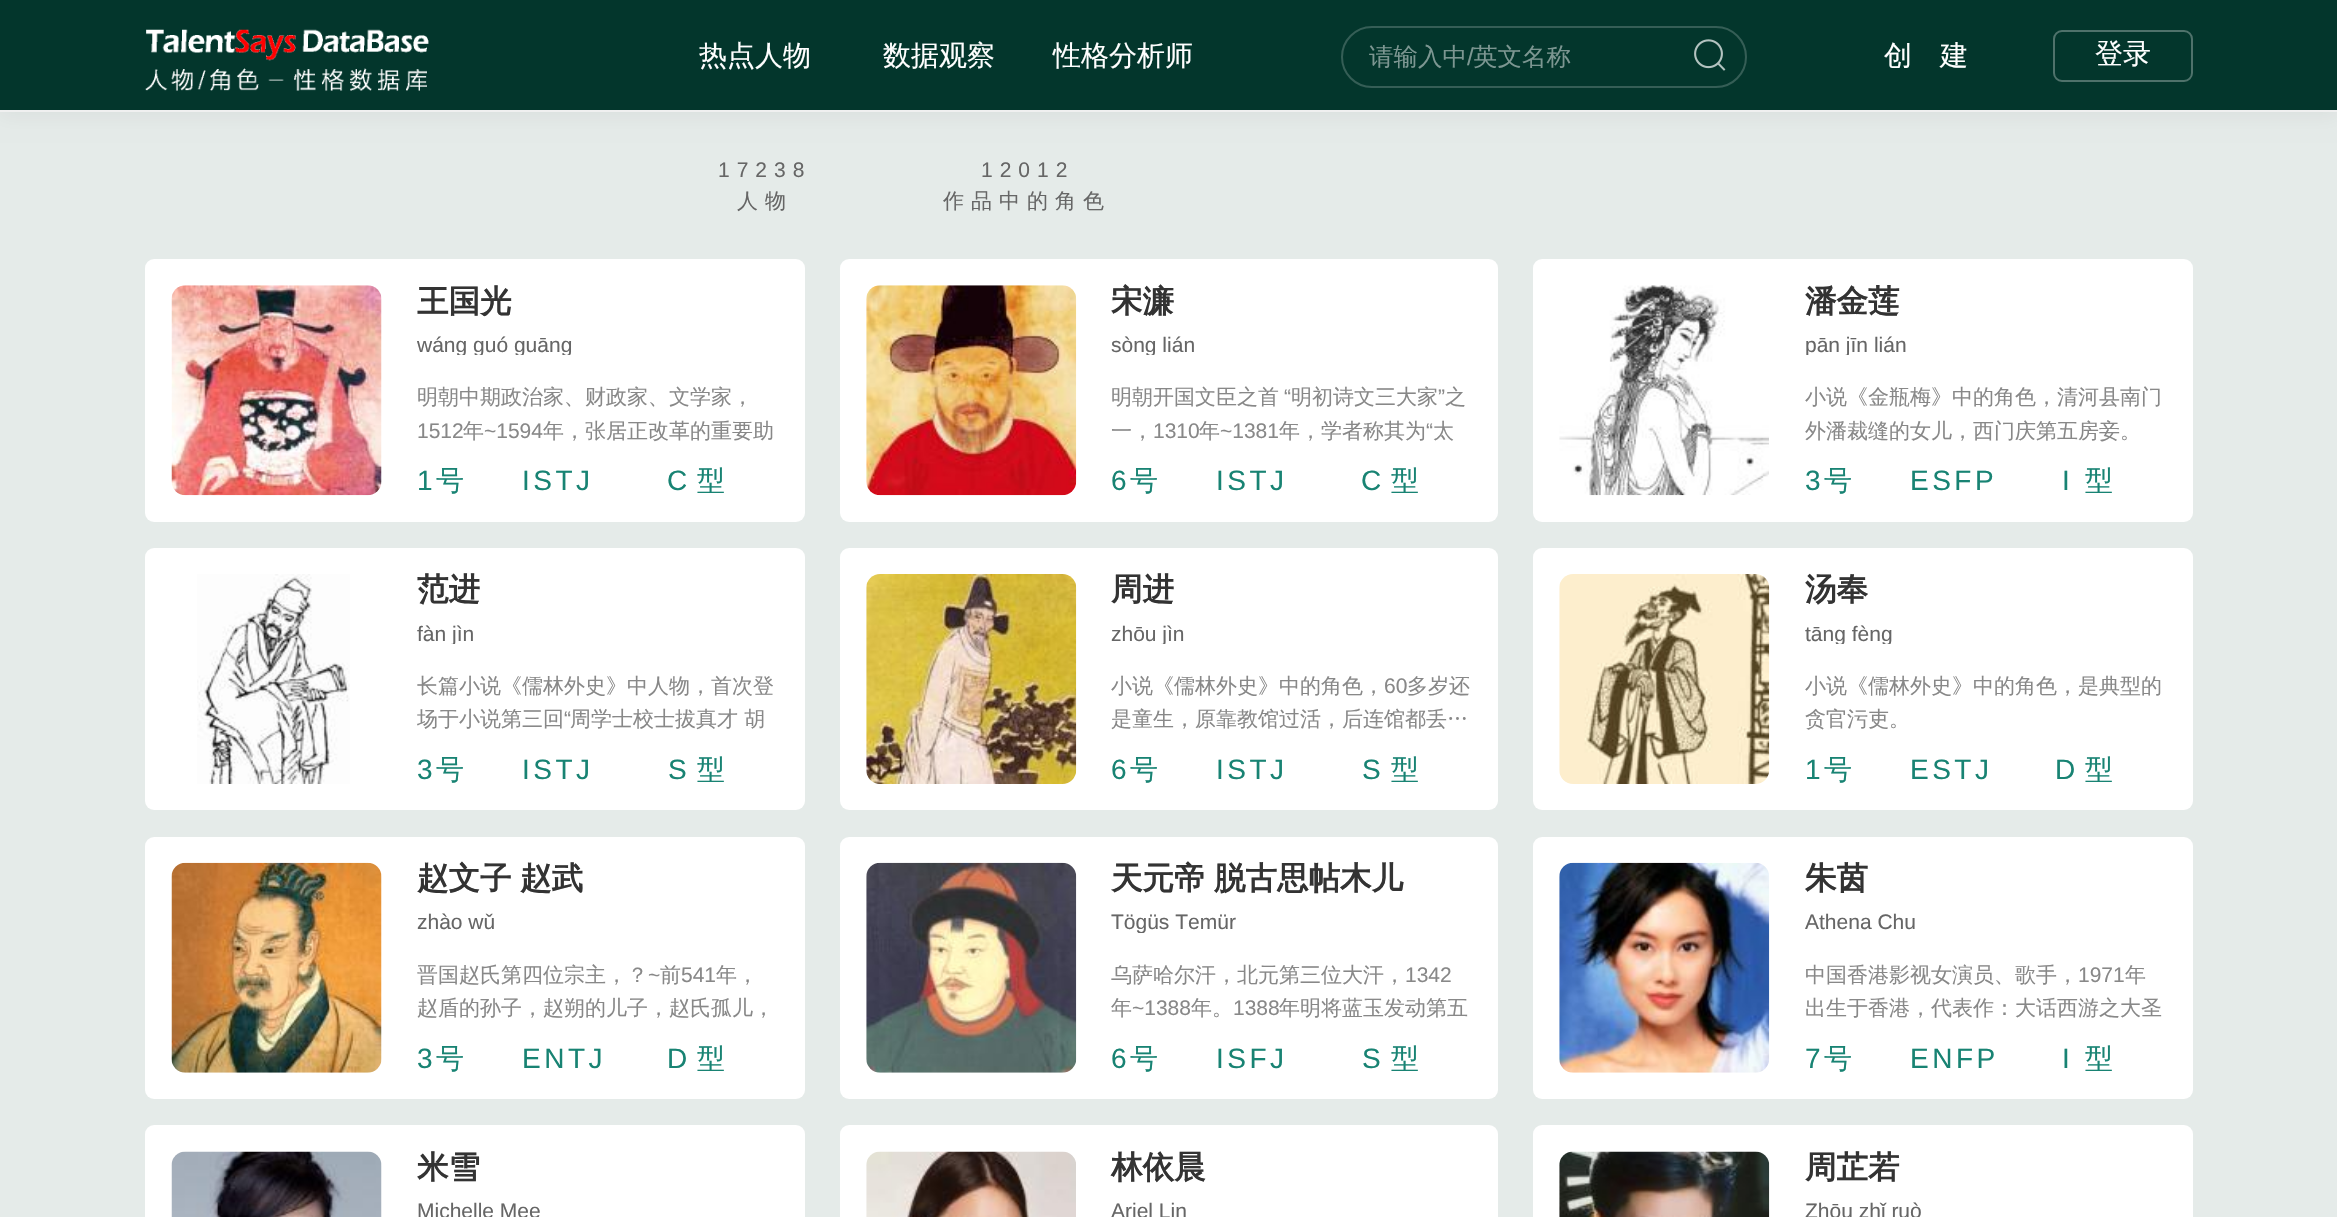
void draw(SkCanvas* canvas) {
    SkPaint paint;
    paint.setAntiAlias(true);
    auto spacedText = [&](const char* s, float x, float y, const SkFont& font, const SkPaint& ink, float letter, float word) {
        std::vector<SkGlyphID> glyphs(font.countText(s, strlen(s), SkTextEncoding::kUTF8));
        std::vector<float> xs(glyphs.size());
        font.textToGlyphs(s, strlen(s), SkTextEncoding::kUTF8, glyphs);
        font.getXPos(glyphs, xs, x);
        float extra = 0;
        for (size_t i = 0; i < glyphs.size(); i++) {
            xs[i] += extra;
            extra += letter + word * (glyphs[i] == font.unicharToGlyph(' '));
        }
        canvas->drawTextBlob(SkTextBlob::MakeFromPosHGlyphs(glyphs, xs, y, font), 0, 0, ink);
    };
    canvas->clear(0xFFE5EBE9);
    paint.setColor(0x0D000000);
    paint.setMaskFilter(SkMaskFilter::MakeBlur(kNormal_SkBlurStyle, 9));
    canvas->drawRect(SkRect::MakeXYWH(0, 4, 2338, 112), paint);
    paint.setMaskFilter(nullptr);
    paint.setColor(0xFF03362C);
    canvas->drawRect(SkRect::MakeXYWH(0, 0, 2337, 110), paint);
    paint.setColor(0xFFF0F0F0);
    canvas->drawRect(SkRect::MakeXYWH(0, 110, 2337, 2), paint);
    canvas->drawImageRect(SkImages::DeferredFromEncodedData(SkData::MakeFromFileName("img1.png")), SkRect::MakeXYWH(145, 29, 284, 62), SkSamplingOptions());
    SkFont font1(fontMgr->matchFamilyStyle("WenQuanYi Zen Hei", SkFontStyle(500, SkFontStyle::kNormal_Width, SkFontStyle::kUpright_Slant)), 28);
    font1.setSubpixel(true);
    paint.setColor(0xFFFFFFFF);
    canvas->drawString("热点人物", 699, 65, font1, paint);
    canvas->drawString("数据观察", 883, 65, font1, paint);
    canvas->drawString("性格分析师", 1053, 65, font1, paint);
    paint.setStyle(SkPaint::kStroke_Style);
    paint.setStrokeWidth(2);
    paint.setColor(0xFF355E56);
    canvas->drawRoundRect(SkRect::MakeXYWH(1342, 27, 404, 60), 30, 30, paint);
    SkFont font2(fontMgr->matchFamilyStyle("WenQuanYi Zen Hei", SkFontStyle(500, SkFontStyle::kNormal_Width, SkFontStyle::kUpright_Slant)), 24.5f);
    font2.setSubpixel(true);
    paint.setStyle(SkPaint::kFill_Style);
    paint.setColor(0xFF7C9691);
    canvas->drawString("请输入中", 1369, 65, font2, paint);
    SkFont font3(fontMgr->matchFamilyStyle("Liberation Sans", SkFontStyle::Normal()), 24.5f);
    font3.setSubpixel(true);
    canvas->drawString("/", 1467, 65, font3, paint);
    canvas->drawString("英文名称", 1473, 65, font2, paint);
    canvas->drawImageRect(SkImages::DeferredFromEncodedData(SkData::MakeFromFileName("img2.png")), SkRect::MakeXYWH(1694, 39, 32, 32), SkSamplingOptions());
    paint.setColor(0xFFFFFFFF);
    canvas->drawString("创", 1884, 65, font1, paint);
    canvas->drawString("建", 1940, 65, font1, paint);
    paint.setStyle(SkPaint::kStroke_Style);
    paint.setColor(0xFF4F726B);
    canvas->drawRoundRect(SkRect::MakeXYWH(2054, 31, 138, 50), 8, 8, paint);
    paint.setStyle(SkPaint::kFill_Style);
    paint.setColor(0xFFFFFFFF);
    canvas->drawString("登录", 2095, 63, font1, paint);
    SkFont font4(fontMgr->matchFamilyStyle("Liberation Sans", SkFontStyle::Normal()), 21);
    font4.setSubpixel(true);
    paint.setColor(0xFF666666);
    spacedText("17238", 718, 177, font4, paint, 7, 0);
    SkFont font5(fontMgr->matchFamilyStyle("WenQuanYi Zen Hei", SkFontStyle(500, SkFontStyle::kNormal_Width, SkFontStyle::kUpright_Slant)), 21);
    font5.setSubpixel(true);
    spacedText("人物", 737, 208, font5, paint, 7, 0);
    spacedText("12012", 981, 177, font4, paint, 7, 0);
    spacedText("作品中的角色", 943, 208, font5, paint, 7, 0);
    paint.setColor(0xFFFFFFFF);
    canvas->drawRoundRect(SkRect::MakeXYWH(145, 259, 660, 263), 9, 9, paint);
    canvas->drawImageRect(SkImages::DeferredFromEncodedData(SkData::MakeFromFileName("img3.png")), SkRect::MakeXYWH(171, 285, 211, 211), SkSamplingOptions());
    SkFont font6(fontMgr->matchFamilyStyle("WenQuanYi Zen Hei", SkFontStyle::Bold()), 31.5f);
    font6.setSubpixel(true);
    paint.setColor(0xFF333333);
    canvas->drawString("王国光", 417, 312, font6, paint);
    canvas->save();
    canvas->clipRect(SkRect::MakeXYWH(417, 334, 360, 21));
    paint.setColor(0xFF666666);
    canvas->drawString("wáng guó guāng", 417, 352, font4, paint);
    canvas->restore();
    paint.setColor(0xFF888888);
    canvas->drawString("明朝中期政治家、财政家、文学家，", 417, 404, font5, paint);
    canvas->drawString("1512", 417, 438, font4, paint);
    canvas->drawString("年", 463, 438, font5, paint);
    canvas->drawString("~1594", 484, 438, font4, paint);
    canvas->drawString("年，张居正改革的重要助", 543, 438, font5, paint);
    SkFont font7(fontMgr->matchFamilyStyle("Liberation Sans", SkFontStyle::Normal()), 28);
    font7.setSubpixel(true);
    paint.setColor(0xFF188373);
    spacedText("1", 417, 490, font7, paint, 3.5f, 0);
    spacedText("号", 436, 490, font1, paint, 3.5f, 0);
    spacedText("ISTJ", 522, 490, font7, paint, 3.5f, 0);
    spacedText("C", 667, 490, font7, paint, 3.5f, 0);
    spacedText("型", 697, 490, font1, paint, 3.5f, 0);
    paint.setColor(0xFFFFFFFF);
    canvas->drawRoundRect(SkRect::MakeXYWH(840, 259, 658, 263), 9, 9, paint);
    canvas->drawImageRect(SkImages::DeferredFromEncodedData(SkData::MakeFromFileName("img4.png")), SkRect::MakeXYWH(866, 285, 211, 211), SkSamplingOptions());
    paint.setColor(0xFF333333);
    canvas->drawString("宋濂", 1111, 312, font6, paint);
    canvas->save();
    canvas->clipRect(SkRect::MakeXYWH(1111, 334, 361, 21));
    paint.setColor(0xFF666666);
    canvas->drawString("sòng lián", 1111, 352, font4, paint);
    canvas->restore();
    paint.setColor(0xFF888888);
    canvas->drawString("明朝开国文臣之首", 1111, 404, font5, paint);
    canvas->drawString("“", 1284, 404, font4, paint);
    canvas->drawString("明初诗文三大家", 1291, 404, font5, paint);
    canvas->drawString("”", 1438, 404, font4, paint);
    canvas->drawString("之", 1445, 404, font5, paint);
    canvas->drawString("1310", 1153, 438, font4, paint);
    canvas->drawString("年", 1199, 438, font5, paint);
    canvas->drawString("~1381", 1220, 438, font4, paint);
    canvas->drawString("年，学者称其为", 1279, 438, font5, paint);
    canvas->drawString("“", 1426, 438, font4, paint);
    canvas->drawString("太", 1433, 438, font5, paint);
    canvas->drawString("一，", 1111, 438, font5, paint);
    paint.setColor(0xFF188373);
    spacedText("6", 1111, 490, font7, paint, 3.5f, 0);
    spacedText("号", 1130, 490, font1, paint, 3.5f, 0);
    spacedText("ISTJ", 1216, 490, font7, paint, 3.5f, 0);
    spacedText("C", 1361, 490, font7, paint, 3.5f, 0);
    spacedText("型", 1391, 490, font1, paint, 3.5f, 0);
    paint.setColor(0xFFFFFFFF);
    canvas->drawRoundRect(SkRect::MakeXYWH(1533, 259, 660, 263), 9, 9, paint);
    canvas->drawImageRect(SkImages::DeferredFromEncodedData(SkData::MakeFromFileName("img5.png")), SkRect::MakeXYWH(1559, 285, 210, 211), SkSamplingOptions());
    paint.setColor(0xFF333333);
    canvas->drawString("潘金莲", 1805, 312, font6, paint);
    canvas->save();
    canvas->clipRect(SkRect::MakeXYWH(1804, 334, 361, 21));
    paint.setColor(0xFF666666);
    canvas->drawString("pān jīn lián", 1805, 352, font4, paint);
    canvas->restore();
    paint.setColor(0xFF888888);
    canvas->drawString("小说《金瓶梅》中的角色，清河县南门", 1805, 404, font5, paint);
    canvas->drawString("外潘裁缝的女儿，西门庆第五房妾。", 1805, 438, font5, paint);
    paint.setColor(0xFF188373);
    spacedText("3", 1805, 490, font7, paint, 3.5f, 0);
    spacedText("号", 1824, 490, font1, paint, 3.5f, 0);
    spacedText("ESFP", 1910, 490, font7, paint, 3.5f, 0);
    spacedText("I", 2062, 490, font7, paint, 3.5f, 0);
    spacedText("型", 2085, 490, font1, paint, 3.5f, 0);
    paint.setColor(0xFFFFFFFF);
    canvas->drawRoundRect(SkRect::MakeXYWH(145, 548, 660, 262), 9, 9, paint);
    canvas->drawImageRect(SkImages::DeferredFromEncodedData(SkData::MakeFromFileName("img6.png")), SkRect::MakeXYWH(197, 574, 153, 210), SkSamplingOptions());
    paint.setColor(0xFF333333);
    canvas->drawString("范进", 417, 600, font6, paint);
    canvas->save();
    canvas->clipRect(SkRect::MakeXYWH(417, 623, 360, 21));
    paint.setColor(0xFF666666);
    canvas->drawString("fàn jìn", 417, 641, font4, paint);
    canvas->restore();
    paint.setColor(0xFF888888);
    canvas->drawString("长篇小说《儒林外史》中人物，首次登", 417, 693, font5, paint);
    canvas->save();
    canvas->clipRect(SkRect::MakeXYWH(417, 670, 360, 67));
    canvas->drawString("场于小说第三回", 417, 726, font5, paint);
    canvas->restore();
    canvas->drawString("“", 564, 726, font4, paint);
    canvas->drawString("周学士校士拔真才 胡", 570, 726, font5, paint);
    paint.setColor(0xFF188373);
    spacedText("3", 417, 779, font7, paint, 3.5f, 0);
    spacedText("号", 436, 779, font1, paint, 3.5f, 0);
    spacedText("ISTJ", 522, 779, font7, paint, 3.5f, 0);
    spacedText("S", 668, 779, font7, paint, 3.5f, 0);
    spacedText("型", 697, 779, font1, paint, 3.5f, 0);
    paint.setColor(0xFFFFFFFF);
    canvas->drawRoundRect(SkRect::MakeXYWH(840, 548, 658, 262), 9, 9, paint);
    canvas->drawImageRect(SkImages::DeferredFromEncodedData(SkData::MakeFromFileName("img7.png")), SkRect::MakeXYWH(866, 574, 211, 210), SkSamplingOptions());
    paint.setColor(0xFF333333);
    canvas->drawString("周进", 1111, 600, font6, paint);
    canvas->save();
    canvas->clipRect(SkRect::MakeXYWH(1111, 623, 361, 21));
    paint.setColor(0xFF666666);
    canvas->drawString("zhōu jìn", 1111, 641, font4, paint);
    canvas->restore();
    paint.setColor(0xFF888888);
    canvas->drawString("小说《儒林外史》中的角色，", 1111, 693, font5, paint);
    canvas->drawString("60", 1384, 693, font4, paint);
    canvas->drawString("多岁还", 1407, 693, font5, paint);
    canvas->drawString("是童生，原靠教馆过活，后连馆都丢…", 1111, 726, font5, paint);
    paint.setColor(0xFF188373);
    spacedText("6", 1111, 779, font7, paint, 3.5f, 0);
    spacedText("号", 1130, 779, font1, paint, 3.5f, 0);
    spacedText("ISTJ", 1216, 779, font7, paint, 3.5f, 0);
    spacedText("S", 1362, 779, font7, paint, 3.5f, 0);
    spacedText("型", 1391, 779, font1, paint, 3.5f, 0);
    paint.setColor(0xFFFFFFFF);
    canvas->drawRoundRect(SkRect::MakeXYWH(1533, 548, 660, 262), 9, 9, paint);
    canvas->drawImageRect(SkImages::DeferredFromEncodedData(SkData::MakeFromFileName("img8.png")), SkRect::MakeXYWH(1559, 574, 211, 210), SkSamplingOptions());
    paint.setColor(0xFF333333);
    canvas->drawString("汤奉", 1805, 600, font6, paint);
    canvas->save();
    canvas->clipRect(SkRect::MakeXYWH(1804, 623, 361, 21));
    paint.setColor(0xFF666666);
    canvas->drawString("tāng fèng", 1805, 641, font4, paint);
    canvas->restore();
    paint.setColor(0xFF888888);
    canvas->drawString("小说《儒林外史》中的角色，是典型的", 1805, 693, font5, paint);
    canvas->drawString("贪官污吏。", 1805, 726, font5, paint);
    paint.setColor(0xFF188373);
    spacedText("1", 1805, 779, font7, paint, 3.5f, 0);
    spacedText("号", 1824, 779, font1, paint, 3.5f, 0);
    spacedText("ESTJ", 1910, 779, font7, paint, 3.5f, 0);
    spacedText("D", 2055, 779, font7, paint, 3.5f, 0);
    spacedText("型", 2085, 779, font1, paint, 3.5f, 0);
    paint.setColor(0xFFFFFFFF);
    canvas->drawRoundRect(SkRect::MakeXYWH(145, 837, 660, 262), 9, 9, paint);
    canvas->drawImageRect(SkImages::DeferredFromEncodedData(SkData::MakeFromFileName("img9.png")), SkRect::MakeXYWH(171, 862, 211, 211), SkSamplingOptions());
    paint.setColor(0xFF333333);
    spacedText("赵文子 赵武", 417, 889, font6, paint, 0, -1);
    paint.setColor(0xFF666666);
    canvas->drawString("zhào wǔ", 417, 929, font4, paint);
    paint.setColor(0xFF888888);
    canvas->drawString("晋国赵氏第四位宗主，？", 417, 982, font5, paint);
    canvas->drawString("~", 648, 982, font4, paint);
    canvas->drawString("前", 660, 982, font5, paint);
    canvas->drawString("541", 681, 982, font4, paint);
    canvas->drawString("年，", 716, 982, font5, paint);
    canvas->drawString("赵盾的孙子，赵朔的儿子，赵氏孤儿，", 417, 1015, font5, paint);
    paint.setColor(0xFF188373);
    spacedText("3", 417, 1068, font7, paint, 3.5f, 0);
    spacedText("号", 436, 1068, font1, paint, 3.5f, 0);
    spacedText("ENTJ", 522, 1068, font7, paint, 3.5f, 0);
    spacedText("D", 667, 1068, font7, paint, 3.5f, 0);
    spacedText("型", 697, 1068, font1, paint, 3.5f, 0);
    paint.setColor(0xFFFFFFFF);
    canvas->drawRoundRect(SkRect::MakeXYWH(840, 837, 658, 262), 9, 9, paint);
    canvas->drawImageRect(SkImages::DeferredFromEncodedData(SkData::MakeFromFileName("img10.png")), SkRect::MakeXYWH(866, 862, 211, 211), SkSamplingOptions());
    paint.setColor(0xFF333333);
    spacedText("天元帝 脱古思帖木儿", 1111, 889, font6, paint, 0, -1);
    canvas->save();
    canvas->clipRect(SkRect::MakeXYWH(1111, 912, 361, 21));
    paint.setColor(0xFF666666);
    canvas->drawString("Tögüs Temür", 1111, 929, font4, paint);
    canvas->restore();
    paint.setColor(0xFF888888);
    canvas->drawString("乌萨哈尔汗，北元第三位大汗，", 1111, 982, font5, paint);
    canvas->drawString("1342", 1405, 982, font4, paint);
    canvas->drawString("年", 1111, 1015, font5, paint);
    canvas->drawString("~1388", 1132, 1015, font4, paint);
    canvas->drawString("年。", 1191, 1015, font5, paint);
    canvas->drawString("1388", 1233, 1015, font4, paint);
    canvas->drawString("年明将蓝玉发动第五", 1279, 1015, font5, paint);
    paint.setColor(0xFF188373);
    spacedText("6", 1111, 1068, font7, paint, 3.5f, 0);
    spacedText("号", 1130, 1068, font1, paint, 3.5f, 0);
    spacedText("ISFJ", 1216, 1068, font7, paint, 3.5f, 0);
    spacedText("S", 1362, 1068, font7, paint, 3.5f, 0);
    spacedText("型", 1391, 1068, font1, paint, 3.5f, 0);
    paint.setColor(0xFFFFFFFF);
    canvas->drawRoundRect(SkRect::MakeXYWH(1533, 837, 660, 262), 9, 9, paint);
    canvas->drawImageRect(SkImages::DeferredFromEncodedData(SkData::MakeFromFileName("img11.png")), SkRect::MakeXYWH(1559, 862, 211, 211), SkSamplingOptions());
    paint.setColor(0xFF333333);
    canvas->drawString("朱茵", 1805, 889, font6, paint);
    paint.setColor(0xFF666666);
    canvas->drawString("Athena Chu", 1805, 929, font4, paint);
    paint.setColor(0xFF888888);
    canvas->drawString("中国香港影视女演员、歌手，", 1805, 982, font5, paint);
    canvas->drawString("1971", 2078, 982, font4, paint);
    canvas->drawString("年", 2125, 982, font5, paint);
    canvas->drawString("出生于香港，代表作：大话西游之大圣", 1805, 1015, font5, paint);
    paint.setColor(0xFF188373);
    spacedText("7", 1805, 1068, font7, paint, 3.5f, 0);
    spacedText("号", 1824, 1068, font1, paint, 3.5f, 0);
    spacedText("ENFP", 1910, 1068, font7, paint, 3.5f, 0);
    spacedText("I", 2062, 1068, font7, paint, 3.5f, 0);
    spacedText("型", 2085, 1068, font1, paint, 3.5f, 0);
    paint.setColor(0xFFFFFFFF);
    canvas->drawRoundRect(SkRect::MakeXYWH(145, 1125, 660, 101), 9, 9, paint);
    canvas->drawImageRect(SkImages::DeferredFromEncodedData(SkData::MakeFromFileName("img12.png")), SkRect::MakeXYWH(171, 1151, 211, 66), SkSamplingOptions());
    paint.setColor(0xFF333333);
    canvas->drawString("米雪", 417, 1178, font6, paint);
    paint.setColor(0xFF666666);
    canvas->drawString("Michelle Mee", 417, 1218, font4, paint);
    paint.setColor(0xFFFFFFFF);
    canvas->drawRoundRect(SkRect::MakeXYWH(840, 1125, 658, 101), 9, 9, paint);
    canvas->drawImageRect(SkImages::DeferredFromEncodedData(SkData::MakeFromFileName("img13.png")), SkRect::MakeXYWH(866, 1151, 210, 66), SkSamplingOptions());
    paint.setColor(0xFF333333);
    canvas->drawString("林依晨", 1111, 1178, font6, paint);
    paint.setColor(0xFF666666);
    canvas->drawString("Ariel Lin", 1111, 1218, font4, paint);
    paint.setColor(0xFFFFFFFF);
    canvas->drawRoundRect(SkRect::MakeXYWH(1533, 1125, 660, 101), 9, 9, paint);
    canvas->drawImageRect(SkImages::DeferredFromEncodedData(SkData::MakeFromFileName("img14.png")), SkRect::MakeXYWH(1559, 1151, 211, 66), SkSamplingOptions());
    paint.setColor(0xFF333333);
    canvas->drawString("周芷若", 1805, 1178, font6, paint);
    paint.setColor(0xFF666666);
    canvas->drawString("Zhōu zhǐ ruò", 1805, 1218, font4, paint);
}
